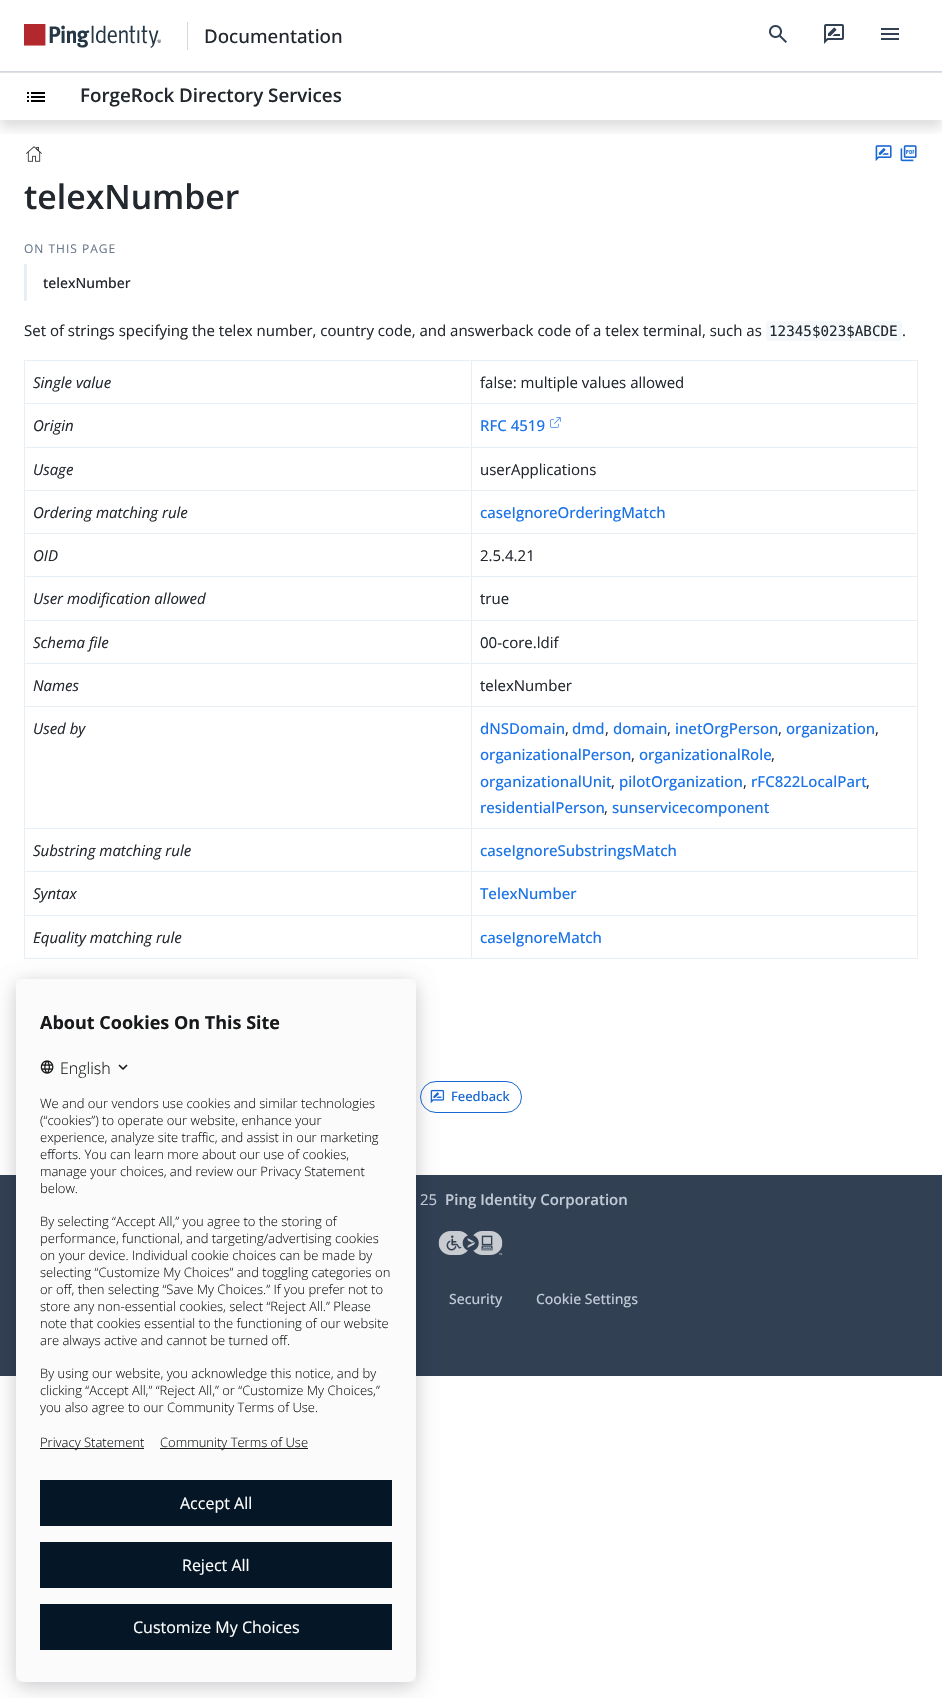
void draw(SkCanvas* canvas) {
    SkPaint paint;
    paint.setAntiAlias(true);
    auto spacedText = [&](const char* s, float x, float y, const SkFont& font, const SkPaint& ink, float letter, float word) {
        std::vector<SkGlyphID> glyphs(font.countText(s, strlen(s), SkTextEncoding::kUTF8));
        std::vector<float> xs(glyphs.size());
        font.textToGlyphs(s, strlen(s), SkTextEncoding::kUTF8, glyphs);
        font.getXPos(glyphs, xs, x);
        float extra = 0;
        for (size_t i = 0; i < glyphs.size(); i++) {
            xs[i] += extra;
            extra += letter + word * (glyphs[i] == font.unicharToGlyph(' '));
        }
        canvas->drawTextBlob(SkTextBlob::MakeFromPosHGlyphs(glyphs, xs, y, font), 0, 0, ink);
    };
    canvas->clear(0xFFFFFFFF);
    canvas->drawImageRect(SkImages::DeferredFromEncodedData(SkData::MakeFromFileName("img7.png")), SkRect::MakeXYWH(875, 145, 17, 16), SkSamplingOptions());
    canvas->drawImageRect(SkImages::DeferredFromEncodedData(SkData::MakeFromFileName("img8.png")), SkRect::MakeXYWH(900, 145, 17, 17), SkSamplingOptions());
    canvas->save();
    canvas->clipRect(SkRect::MakeXYWH(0, 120, 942, 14));
    paint.setColor(0x21000000);
    paint.setMaskFilter(SkMaskFilter::MakeBlur(kNormal_SkBlurStyle, 5.5f));
    canvas->drawRect(SkRect::MakeXYWH(0, 80, 942, 48), paint);
    paint.setMaskFilter(nullptr);
    canvas->restore();
    paint.setColor(0xFFD3D8E0);
    canvas->drawRect(SkRect::MakeXYWH(0, 71, 942, 1), paint);
    canvas->drawImageRect(SkImages::DeferredFromEncodedData(SkData::MakeFromFileName("img1.png")), SkRect::MakeXYWH(24, 24, 137, 24), SkSamplingOptions());
    canvas->drawRect(SkRect::MakeXYWH(187, 22, 1, 28), paint);
    SkFont font1(fontMgr->matchFamilyStyle("Open Sans", SkFontStyle(500, SkFontStyle::kNormal_Width, SkFontStyle::kUpright_Slant)), 18.75f);
    font1.setSubpixel(true);
    paint.setColor(0xFF23282E);
    canvas->drawString("Documentation", 204, 43, font1, paint);
    canvas->drawImageRect(SkImages::DeferredFromEncodedData(SkData::MakeFromFileName("img2.png")), SkRect::MakeXYWH(769, 25, 18, 18), SkSamplingOptions());
    canvas->drawImageRect(SkImages::DeferredFromEncodedData(SkData::MakeFromFileName("img3.png")), SkRect::MakeXYWH(824, 24, 20, 20), SkSamplingOptions());
    canvas->drawImageRect(SkImages::DeferredFromEncodedData(SkData::MakeFromFileName("img4.png")), SkRect::MakeXYWH(881, 28, 18, 12), SkSamplingOptions());
    paint.setColor(0xFFE1E1E1);
    canvas->drawRect(SkRect::MakeXYWH(0, 72, 942, 1), paint);
    canvas->drawImageRect(SkImages::DeferredFromEncodedData(SkData::MakeFromFileName("img5.png")), SkRect::MakeXYWH(27, 92, 18, 10), SkSamplingOptions());
    SkFont font2(fontMgr->matchFamilyStyle("Open Sans", SkFontStyle(600, SkFontStyle::kNormal_Width, SkFontStyle::kUpright_Slant)), 18.75f);
    font2.setSubpixel(true);
    paint.setColor(0xFF23282E);
    canvas->drawString("ForgeRock Directory Services", 80, 102, font2, paint);
    canvas->drawImageRect(SkImages::DeferredFromEncodedData(SkData::MakeFromFileName("img6.png")), SkRect::MakeXYWH(26, 146, 16, 16), SkSamplingOptions());
    SkFont font3(fontMgr->matchFamilyStyle("Open Sans", SkFontStyle(600, SkFontStyle::kNormal_Width, SkFontStyle::kUpright_Slant)), 33.75f);
    font3.setSubpixel(true);
    canvas->drawString("telexNumber", 24, 209, font3, paint);
    SkFont font4(fontMgr->matchFamilyStyle("Open Sans", SkFontStyle::Normal()), 12);
    font4.setSubpixel(true);
    paint.setColor(0xFF69788B);
    spacedText("ON THIS PAGE", 24, 253, font4, paint, 1, 0);
    paint.setColor(0xFFE7EEF4);
    canvas->drawRect(SkRect::MakeXYWH(24, 264, 3, 37), paint);
    SkFont font5(fontMgr->matchFamilyStyle("Open Sans", SkFontStyle(500, SkFontStyle::kNormal_Width, SkFontStyle::kUpright_Slant)), 14);
    font5.setSubpixel(true);
    paint.setColor(0xFF23282E);
    canvas->drawString("telexNumber", 43, 288, font5, paint);
    SkFont font6(fontMgr->matchFamilyStyle("Open Sans", SkFontStyle::Normal()), 15);
    font6.setSubpixel(true);
    canvas->drawString("Set of strings specifying the telex number, country code, and answerback code of a telex terminal, such as", 24, 336, font6, paint);
    paint.setColor(0xFFF5F8FA);
    canvas->drawRoundRect(SkRect::MakeXYWH(766, 321, 136, 20), 4, 4, paint);
    SkFont font7(fontMgr->matchFamilyStyle("DejaVu Sans Mono", SkFontStyle::Normal()), 14.25f);
    font7.setSubpixel(true);
    paint.setColor(0xFF23282E);
    canvas->drawString("12345$023$ABCDE", 769, 336, font7, paint);
    canvas->drawString(".", 902, 336, font6, paint);
    paint.setColor(0xFFE7EEF4);
    canvas->drawRect(SkRect::MakeXYWH(471, 360, 447, 1), paint);
    canvas->drawRect(SkRect::MakeXYWH(471, 403, 447, 1), paint);
    canvas->drawRect(SkRect::MakeXYWH(471, 447, 447, 1), paint);
    canvas->drawRect(SkRect::MakeXYWH(471, 490, 447, 1), paint);
    canvas->drawRect(SkRect::MakeXYWH(471, 533, 447, 1), paint);
    canvas->drawRect(SkRect::MakeXYWH(471, 576, 447, 1), paint);
    canvas->drawRect(SkRect::MakeXYWH(471, 620, 447, 1), paint);
    canvas->drawRect(SkRect::MakeXYWH(471, 663, 447, 1), paint);
    canvas->drawRect(SkRect::MakeXYWH(471, 706, 447, 1), paint);
    canvas->drawRect(SkRect::MakeXYWH(471, 828, 447, 1), paint);
    canvas->drawRect(SkRect::MakeXYWH(471, 871, 447, 1), paint);
    canvas->drawRect(SkRect::MakeXYWH(471, 915, 447, 1), paint);
    canvas->drawRect(SkRect::MakeXYWH(917, 915, 1, 44), paint);
    canvas->drawRect(SkRect::MakeXYWH(471, 958, 447, 1), paint);
    canvas->drawRect(SkRect::MakeXYWH(471, 915, 1, 44), paint);
    canvas->drawRect(SkRect::MakeXYWH(24, 915, 448, 1), paint);
    canvas->drawRect(SkRect::MakeXYWH(471, 871, 1, 45), paint);
    canvas->drawRect(SkRect::MakeXYWH(24, 871, 448, 1), paint);
    canvas->drawRect(SkRect::MakeXYWH(471, 828, 1, 44), paint);
    canvas->drawRect(SkRect::MakeXYWH(24, 828, 448, 1), paint);
    canvas->drawRect(SkRect::MakeXYWH(471, 706, 1, 123), paint);
    canvas->drawRect(SkRect::MakeXYWH(24, 706, 448, 1), paint);
    canvas->drawRect(SkRect::MakeXYWH(471, 663, 1, 44), paint);
    canvas->drawRect(SkRect::MakeXYWH(24, 663, 448, 1), paint);
    canvas->drawRect(SkRect::MakeXYWH(471, 620, 1, 44), paint);
    canvas->drawRect(SkRect::MakeXYWH(24, 620, 448, 1), paint);
    canvas->drawRect(SkRect::MakeXYWH(471, 576, 1, 45), paint);
    canvas->drawRect(SkRect::MakeXYWH(24, 576, 448, 1), paint);
    canvas->drawRect(SkRect::MakeXYWH(471, 533, 1, 44), paint);
    canvas->drawRect(SkRect::MakeXYWH(24, 533, 448, 1), paint);
    canvas->drawRect(SkRect::MakeXYWH(471, 490, 1, 44), paint);
    canvas->drawRect(SkRect::MakeXYWH(24, 490, 448, 1), paint);
    canvas->drawRect(SkRect::MakeXYWH(471, 447, 1, 44), paint);
    canvas->drawRect(SkRect::MakeXYWH(24, 447, 448, 1), paint);
    canvas->drawRect(SkRect::MakeXYWH(471, 403, 1, 45), paint);
    canvas->drawRect(SkRect::MakeXYWH(24, 403, 448, 1), paint);
    canvas->drawRect(SkRect::MakeXYWH(471, 360, 1, 44), paint);
    canvas->drawRect(SkRect::MakeXYWH(24, 360, 448, 1), paint);
    canvas->drawRect(SkRect::MakeXYWH(24, 958, 448, 1), paint);
    canvas->drawRect(SkRect::MakeXYWH(24, 915, 1, 44), paint);
    canvas->drawRect(SkRect::MakeXYWH(24, 871, 1, 45), paint);
    canvas->drawRect(SkRect::MakeXYWH(24, 828, 1, 44), paint);
    canvas->drawRect(SkRect::MakeXYWH(24, 706, 1, 123), paint);
    canvas->drawRect(SkRect::MakeXYWH(24, 663, 1, 44), paint);
    canvas->drawRect(SkRect::MakeXYWH(24, 620, 1, 44), paint);
    canvas->drawRect(SkRect::MakeXYWH(24, 576, 1, 45), paint);
    canvas->drawRect(SkRect::MakeXYWH(24, 533, 1, 44), paint);
    canvas->drawRect(SkRect::MakeXYWH(24, 490, 1, 44), paint);
    canvas->drawRect(SkRect::MakeXYWH(24, 447, 1, 44), paint);
    canvas->drawRect(SkRect::MakeXYWH(24, 403, 1, 45), paint);
    canvas->drawRect(SkRect::MakeXYWH(24, 360, 1, 44), paint);
    SkFont font8(fontMgr->matchFamilyStyle("Open Sans", SkFontStyle::Italic()), 15);
    font8.setSubpixel(true);
    paint.setColor(0xFF23282E);
    canvas->drawString("Single value", 33, 388, font8, paint);
    paint.setColor(0xFFE7EEF4);
    canvas->drawRect(SkRect::MakeXYWH(917, 871, 1, 45), paint);
    canvas->drawRect(SkRect::MakeXYWH(917, 828, 1, 44), paint);
    canvas->drawRect(SkRect::MakeXYWH(917, 706, 1, 123), paint);
    canvas->drawRect(SkRect::MakeXYWH(917, 663, 1, 44), paint);
    canvas->drawRect(SkRect::MakeXYWH(917, 620, 1, 44), paint);
    canvas->drawRect(SkRect::MakeXYWH(917, 576, 1, 45), paint);
    canvas->drawRect(SkRect::MakeXYWH(917, 533, 1, 44), paint);
    canvas->drawRect(SkRect::MakeXYWH(917, 490, 1, 44), paint);
    canvas->drawRect(SkRect::MakeXYWH(917, 447, 1, 44), paint);
    canvas->drawRect(SkRect::MakeXYWH(917, 403, 1, 45), paint);
    canvas->drawRect(SkRect::MakeXYWH(917, 360, 1, 44), paint);
    paint.setColor(0xFF23282E);
    canvas->drawString("false: multiple values allowed", 480, 388, font6, paint);
    canvas->drawString("Origin", 33, 431, font8, paint);
    SkFont font9(fontMgr->matchFamilyStyle("Open Sans", SkFontStyle(500, SkFontStyle::kNormal_Width, SkFontStyle::kUpright_Slant)), 15);
    font9.setSubpixel(true);
    paint.setColor(0xFF1A73E8);
    canvas->drawString("RFC 4519", 480, 431, font9, paint);
    canvas->drawImageRect(SkImages::DeferredFromEncodedData(SkData::MakeFromFileName("img9.png")), SkRect::MakeXYWH(550, 417, 11, 11), SkSamplingOptions());
    paint.setColor(0xFF23282E);
    canvas->drawString("Usage", 33, 475, font8, paint);
    canvas->drawString("userApplications", 480, 475, font6, paint);
    canvas->drawString("Ordering matching rule", 33, 518, font8, paint);
    paint.setColor(0xFF1A73E8);
    canvas->drawString("caseIgnoreOrderingMatch", 480, 518, font9, paint);
    paint.setColor(0xFF23282E);
    canvas->drawString("OID", 33, 561, font8, paint);
    canvas->drawString("2.5.4.21", 480, 561, font6, paint);
    canvas->drawString("User modification allowed", 33, 604, font8, paint);
    canvas->drawString("true", 480, 604, font6, paint);
    canvas->drawString("Schema file", 33, 648, font8, paint);
    canvas->drawString("00-core.ldif", 480, 648, font6, paint);
    canvas->drawString("Names", 33, 691, font8, paint);
    canvas->drawString("telexNumber", 480, 691, font6, paint);
    canvas->drawString("Used by", 33, 734, font8, paint);
    paint.setColor(0xFF1A73E8);
    canvas->drawString("dNSDomain", 480, 734, font9, paint);
    paint.setColor(0xFF23282E);
    canvas->drawString(",", 565, 734, font6, paint);
    paint.setColor(0xFF1A73E8);
    canvas->drawString("dmd", 572, 734, font9, paint);
    paint.setColor(0xFF23282E);
    canvas->drawString(",", 605, 734, font6, paint);
    paint.setColor(0xFF1A73E8);
    canvas->drawString("domain", 613, 734, font9, paint);
    paint.setColor(0xFF23282E);
    canvas->drawString(",", 667, 734, font6, paint);
    paint.setColor(0xFF1A73E8);
    canvas->drawString("inetOrgPerson", 675, 734, font9, paint);
    paint.setColor(0xFF23282E);
    canvas->drawString(",", 778, 734, font6, paint);
    paint.setColor(0xFF1A73E8);
    canvas->drawString("organization", 786, 734, font9, paint);
    paint.setColor(0xFF23282E);
    canvas->drawString(",", 875, 734, font6, paint);
    paint.setColor(0xFF1A73E8);
    canvas->drawString("organizationalPerson", 480, 760, font9, paint);
    paint.setColor(0xFF23282E);
    canvas->drawString(",", 631, 760, font6, paint);
    paint.setColor(0xFF1A73E8);
    canvas->drawString("organizationalRole", 639, 760, font9, paint);
    paint.setColor(0xFF23282E);
    canvas->drawString(",", 771, 760, font6, paint);
    paint.setColor(0xFF1A73E8);
    canvas->drawString("organizationalUnit", 480, 787, font9, paint);
    paint.setColor(0xFF23282E);
    canvas->drawString(",", 611, 787, font6, paint);
    paint.setColor(0xFF1A73E8);
    canvas->drawString("pilotOrganization", 619, 787, font9, paint);
    paint.setColor(0xFF23282E);
    canvas->drawString(",", 743, 787, font6, paint);
    paint.setColor(0xFF1A73E8);
    canvas->drawString("rFC822LocalPart", 751, 787, font9, paint);
    paint.setColor(0xFF23282E);
    canvas->drawString(",", 866, 787, font6, paint);
    paint.setColor(0xFF1A73E8);
    canvas->drawString("residentialPerson", 480, 813, font9, paint);
    paint.setColor(0xFF23282E);
    canvas->drawString(",", 604, 813, font6, paint);
    paint.setColor(0xFF1A73E8);
    canvas->drawString("sunservicecomponent", 612, 813, font9, paint);
    paint.setColor(0xFF23282E);
    canvas->drawString("Substring matching rule", 33, 856, font8, paint);
    paint.setColor(0xFF1A73E8);
    canvas->drawString("caseIgnoreSubstringsMatch", 480, 856, font9, paint);
    paint.setColor(0xFF23282E);
    canvas->drawString("Syntax", 33, 899, font8, paint);
    paint.setColor(0xFF1A73E8);
    canvas->drawString("TelexNumber", 480, 899, font9, paint);
    paint.setColor(0xFF23282E);
    canvas->drawString("Equality matching rule", 33, 943, font8, paint);
    paint.setColor(0xFF1A73E8);
    canvas->drawString("caseIgnoreMatch", 480, 943, font9, paint);
    paint.setStyle(SkPaint::kStroke_Style);
    paint.setStrokeWidth(1);
    paint.setColor(0xFF1967D2);
    canvas->drawRoundRect(SkRect::MakeXYWH(420.5f, 1081.5f, 101, 31), 15.5f, 15.5f, paint);
    canvas->drawImageRect(SkImages::DeferredFromEncodedData(SkData::MakeFromFileName("img10.png")), SkRect::MakeXYWH(430, 1089, 15, 15), SkSamplingOptions());
    SkFont font10(fontMgr->matchFamilyStyle("Open Sans", SkFontStyle(500, SkFontStyle::kNormal_Width, SkFontStyle::kUpright_Slant)), 13);
    font10.setSubpixel(true);
    paint.setStyle(SkPaint::kFill_Style);
    canvas->drawString("Feedback", 451, 1101, font10, paint);
    paint.setColor(0xFF324054);
    canvas->drawRect(SkRect::MakeXYWH(0, 1175, 942, 201), paint);
    canvas->drawImageRect(SkImages::DeferredFromEncodedData(SkData::MakeFromFileName("img13.png")), SkRect::MakeXYWH(438, 1231, 65, 24), SkSamplingOptions());
    canvas->save();
    canvas->clipPath(SkPathBuilder(SkPathFillType::kEvenOdd).moveTo(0, 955).lineTo(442, 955).lineTo(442, 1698).lineTo(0, 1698).close().moveTo(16, 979).lineTo(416, 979).lineTo(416, 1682).lineTo(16, 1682).close().detach(), true);
    paint.setColor(0x1A01013F);
    paint.setMaskFilter(SkMaskFilter::MakeBlur(kNormal_SkBlurStyle, 9.5f));
    canvas->drawRect(SkRect::MakeXYWH(20, 985, 392, 695), paint);
    paint.setMaskFilter(nullptr);
    canvas->restore();
    paint.setColor(0x26000000);
    paint.setMaskFilter(SkMaskFilter::MakeBlur(kNormal_SkBlurStyle, 10));
    canvas->drawRoundRect(SkRect::MakeXYWH(16, 984, 400, 703), 8, 8, paint);
    paint.setMaskFilter(nullptr);
    paint.setColor(0xFFFBFBFC);
    canvas->drawRoundRect(SkRect::MakeXYWH(16, 979, 400, 703), 8, 8, paint);
    SkFont font11(fontMgr->matchFamilyStyle("Open Sans", SkFontStyle::Bold()), 18);
    font11.setSubpixel(true);
    paint.setColor(0xFF17191A);
    canvas->drawString("About Cookies On This Site", 40, 1029, font11, paint);
    canvas->drawImageRect(SkImages::DeferredFromEncodedData(SkData::MakeFromFileName("img11.png")), SkRect::MakeXYWH(40, 1060, 14, 14), SkSamplingOptions());
    SkFont font12(fontMgr->matchFamilyStyle("Open Sans", SkFontStyle(300, SkFontStyle::kNormal_Width, SkFontStyle::kUpright_Slant)), 16);
    font12.setSubpixel(true);
    canvas->drawString("English", 60, 1074, font12, paint);
    canvas->drawImageRect(SkImages::DeferredFromEncodedData(SkData::MakeFromFileName("img12.png")), SkRect::MakeXYWH(118, 1064, 10, 6), SkSamplingOptions());
    SkFont font13(fontMgr->matchFamilyStyle("Open Sans", SkFontStyle(300, SkFontStyle::kNormal_Width, SkFontStyle::kUpright_Slant)), 13);
    font13.setSubpixel(true);
    canvas->drawString("We and our vendors use cookies and similar technologies", 40, 1108, font13, paint);
    canvas->drawString("(“cookies”) to operate our website, enhance your", 40, 1125, font13, paint);
    canvas->drawString("experience, analyze site traffic, and assist in our marketing", 40, 1142, font13, paint);
    canvas->drawString("efforts. You can learn more about our use of cookies,", 40, 1159, font13, paint);
    canvas->drawString("manage your choices, and review our Privacy Statement", 40, 1176, font13, paint);
    canvas->drawString("below.", 40, 1193, font13, paint);
    canvas->drawString("By selecting “Accept All,” you agree to the storing of", 40, 1226, font13, paint);
    canvas->drawString("performance, functional, and targeting/advertising cookies", 40, 1243, font13, paint);
    canvas->drawString("on your device. Individual cookie choices can be made by", 40, 1260, font13, paint);
    canvas->drawString("selecting “Customize My Choices” and toggling categories on", 40, 1277, font13, paint);
    canvas->drawString("or off, then selecting “Save My Choices.” If you prefer not to", 40, 1294, font13, paint);
    canvas->drawString("store any non-essential cookies, select “Reject All.” Please", 40, 1311, font13, paint);
    canvas->drawString("note that cookies essential to the functioning of our website", 40, 1328, font13, paint);
    canvas->drawString("are always active and cannot be turned off.", 40, 1345, font13, paint);
    canvas->drawString("By using our website, you acknowledge this notice, and by", 40, 1378, font13, paint);
    canvas->drawString("clicking “Accept All,” “Reject All,” or “Customize My Choices,”", 40, 1395, font13, paint);
    canvas->drawString("you also agree to our Community Terms of Use.", 40, 1412, font13, paint);
    canvas->drawRect(SkRect::MakeXYWH(40, 1448, 104, 1), paint);
    canvas->drawString("Privacy Statement", 40, 1447, font13, paint);
    canvas->drawRect(SkRect::MakeXYWH(160, 1448, 148, 1), paint);
    canvas->drawString("Community Terms of Use", 160, 1447, font13, paint);
    paint.setColor(0xFF051727);
    canvas->drawRect(SkRect::MakeXYWH(40, 1480, 352, 46), paint);
    SkFont font14(fontMgr->matchFamilyStyle("Open Sans", SkFontStyle::Normal()), 16);
    font14.setSubpixel(true);
    paint.setColor(0xFFFFFFFF);
    canvas->drawString("Accept All", 180, 1509, font14, paint);
    paint.setColor(0xFF051727);
    canvas->drawRect(SkRect::MakeXYWH(40, 1542, 352, 46), paint);
    paint.setColor(0xFFFFFFFF);
    canvas->drawString("Reject All", 182, 1571, font14, paint);
    paint.setColor(0xFF051727);
    canvas->drawRect(SkRect::MakeXYWH(40, 1604, 352, 46), paint);
    paint.setColor(0xFFFFFFFF);
    canvas->drawString("Customize My Choices", 133, 1633, font14, paint);
    paint.setColor(0xFFC0C9D5);
    canvas->drawString("25", 420, 1205, font6, paint);
    SkFont font15(fontMgr->matchFamilyStyle("Open Sans", SkFontStyle(600, SkFontStyle::kNormal_Width, SkFontStyle::kUpright_Slant)), 15);
    font15.setSubpixel(true);
    canvas->drawString("Ping Identity Corporation", 445, 1205, font15, paint);
    canvas->drawString("Security", 449, 1304, font5, paint);
    canvas->drawString("Cookie Settings", 536, 1304, font5, paint);
}
